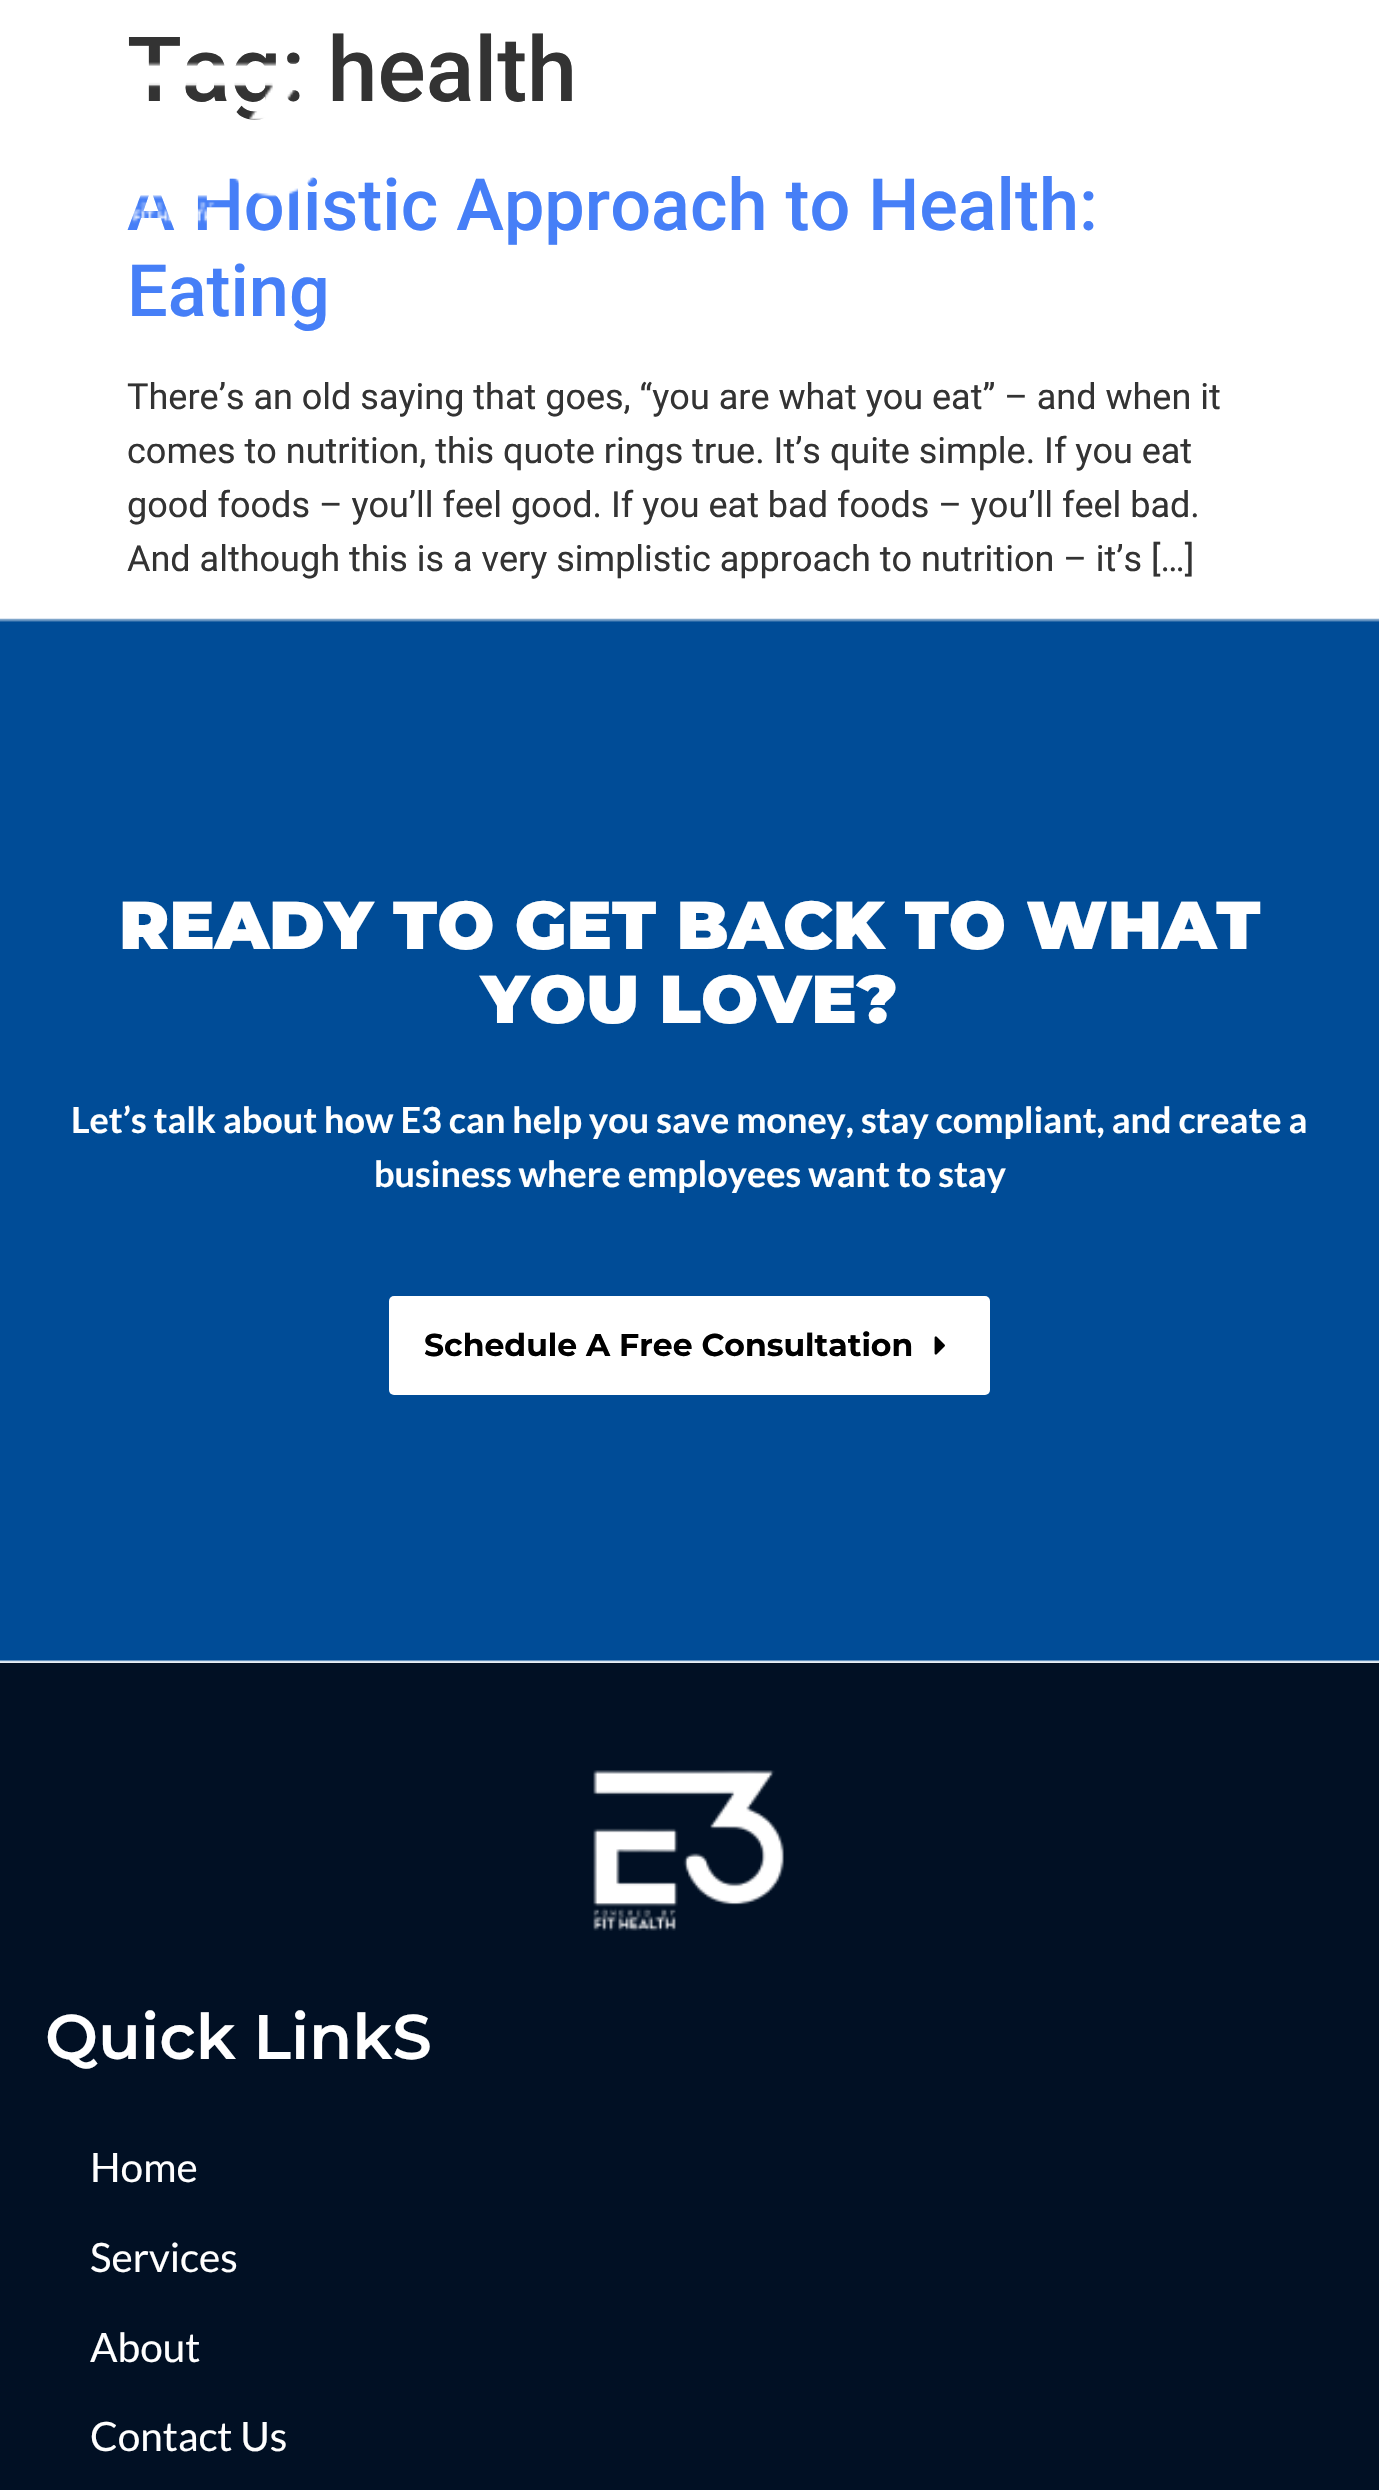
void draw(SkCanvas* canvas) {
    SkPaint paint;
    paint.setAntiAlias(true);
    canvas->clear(0xFFFFFFFF);
    SkFont font1(fontMgr->matchFamilyStyle("Roboto", SkFontStyle(500, SkFontStyle::kNormal_Width, SkFontStyle::kUpright_Slant)), 90);
    font1.setSubpixel(true);
    paint.setColor(0xFF333333);
    canvas->drawString("Tag: health", 127, 101, font1, paint);
    SkFont font2(fontMgr->matchFamilyStyle("Roboto", SkFontStyle(500, SkFontStyle::kNormal_Width, SkFontStyle::kUpright_Slant)), 72);
    font2.setSubpixel(true);
    paint.setColor(0xFF467FF7);
    canvas->drawString("A Holistic Approach to Health:", 127, 230, font2, paint);
    canvas->drawString("Eating", 127, 316, font2, paint);
    SkFont font3(fontMgr->matchFamilyStyle("Roboto", SkFontStyle::Normal()), 36);
    font3.setSubpixel(true);
    paint.setColor(0xFF333333);
    canvas->drawString("There’s an old saying that goes, “you are what you eat” – and when it", 127, 409, font3, paint);
    canvas->drawString("comes to nutrition, this quote rings true. It’s quite simple. If you eat", 127, 463, font3, paint);
    canvas->drawString("good foods – you’ll feel good. If you eat bad foods – you’ll feel bad.", 127, 517, font3, paint);
    canvas->drawString("And although this is a very simplistic approach to nutrition – it’s […]", 127, 571, font3, paint);
    canvas->drawImageRect(SkImages::DeferredFromEncodedData(SkData::MakeFromFileName("img1.png")), SkRect::MakeXYWH(132, 62, 183, 162), SkSamplingOptions());
    canvas->drawImageRect(SkImages::DeferredFromEncodedData(SkData::MakeFromFileName("img2.png")), SkRect::MakeXYWH(0, 618, 1379, 1045), SkSamplingOptions());
    SkFont font4(fontMgr->matchFamilyStyle("Montserrat", SkFontStyle(900, SkFontStyle::kNormal_Width, SkFontStyle::kUpright_Slant)), 67.5f);
    font4.setSubpixel(true);
    paint.setColor(0xFFFFFFFF);
    canvas->drawString("READY TO GET BACK TO WHAT", 119, 949, font4, paint);
    canvas->drawString("YOU LOVE?", 481, 1023, font4, paint);
    SkFont font5(fontMgr->matchFamilyStyle("Lato", SkFontStyle::Bold()), 36);
    font5.setSubpixel(true);
    canvas->drawString("Let’s talk about how E3 can help you save money, stay compliant, and create a", 71, 1133, font5, paint);
    canvas->drawString("business where employees want to stay", 374, 1187, font5, paint);
    canvas->drawRoundRect(SkRect::MakeXYWH(389, 1296, 601, 99), 5, 5, paint);
    SkFont font6(fontMgr->matchFamilyStyle("Montserrat", SkFontStyle::Bold()), 31.5f);
    font6.setSubpixel(true);
    paint.setColor(0xFF000000);
    canvas->drawString("Schedule A Free Consultation", 424, 1356, font6, paint);
    canvas->drawImageRect(SkImages::DeferredFromEncodedData(SkData::MakeFromFileName("img3.png")), SkRect::MakeXYWH(934, 1336, 11, 19), SkSamplingOptions());
    paint.setColor(0xFF011024);
    canvas->drawRect(SkRect::MakeXYWH(0, 1663, 1379, 827), paint);
    canvas->drawImageRect(SkImages::DeferredFromEncodedData(SkData::MakeFromFileName("img4.png")), SkRect::MakeXYWH(593, 1770, 191, 161), SkSamplingOptions());
    SkFont font7(fontMgr->matchFamilyStyle("Montserrat", SkFontStyle(600, SkFontStyle::kNormal_Width, SkFontStyle::kUpright_Slant)), 63);
    font7.setSubpixel(true);
    paint.setColor(0xFFFFFFFF);
    canvas->drawString("Quick LinkS", 45, 2059, font7, paint);
    SkFont font8(fontMgr->matchFamilyStyle("Lato", SkFontStyle::Normal()), 40.5f);
    font8.setSubpixel(true);
    canvas->drawString("Home", 90, 2182, font8, paint);
    canvas->drawString("Services", 90, 2272, font8, paint);
    canvas->drawString("About", 90, 2362, font8, paint);
    canvas->drawString("Contact Us", 90, 2451, font8, paint);
}
